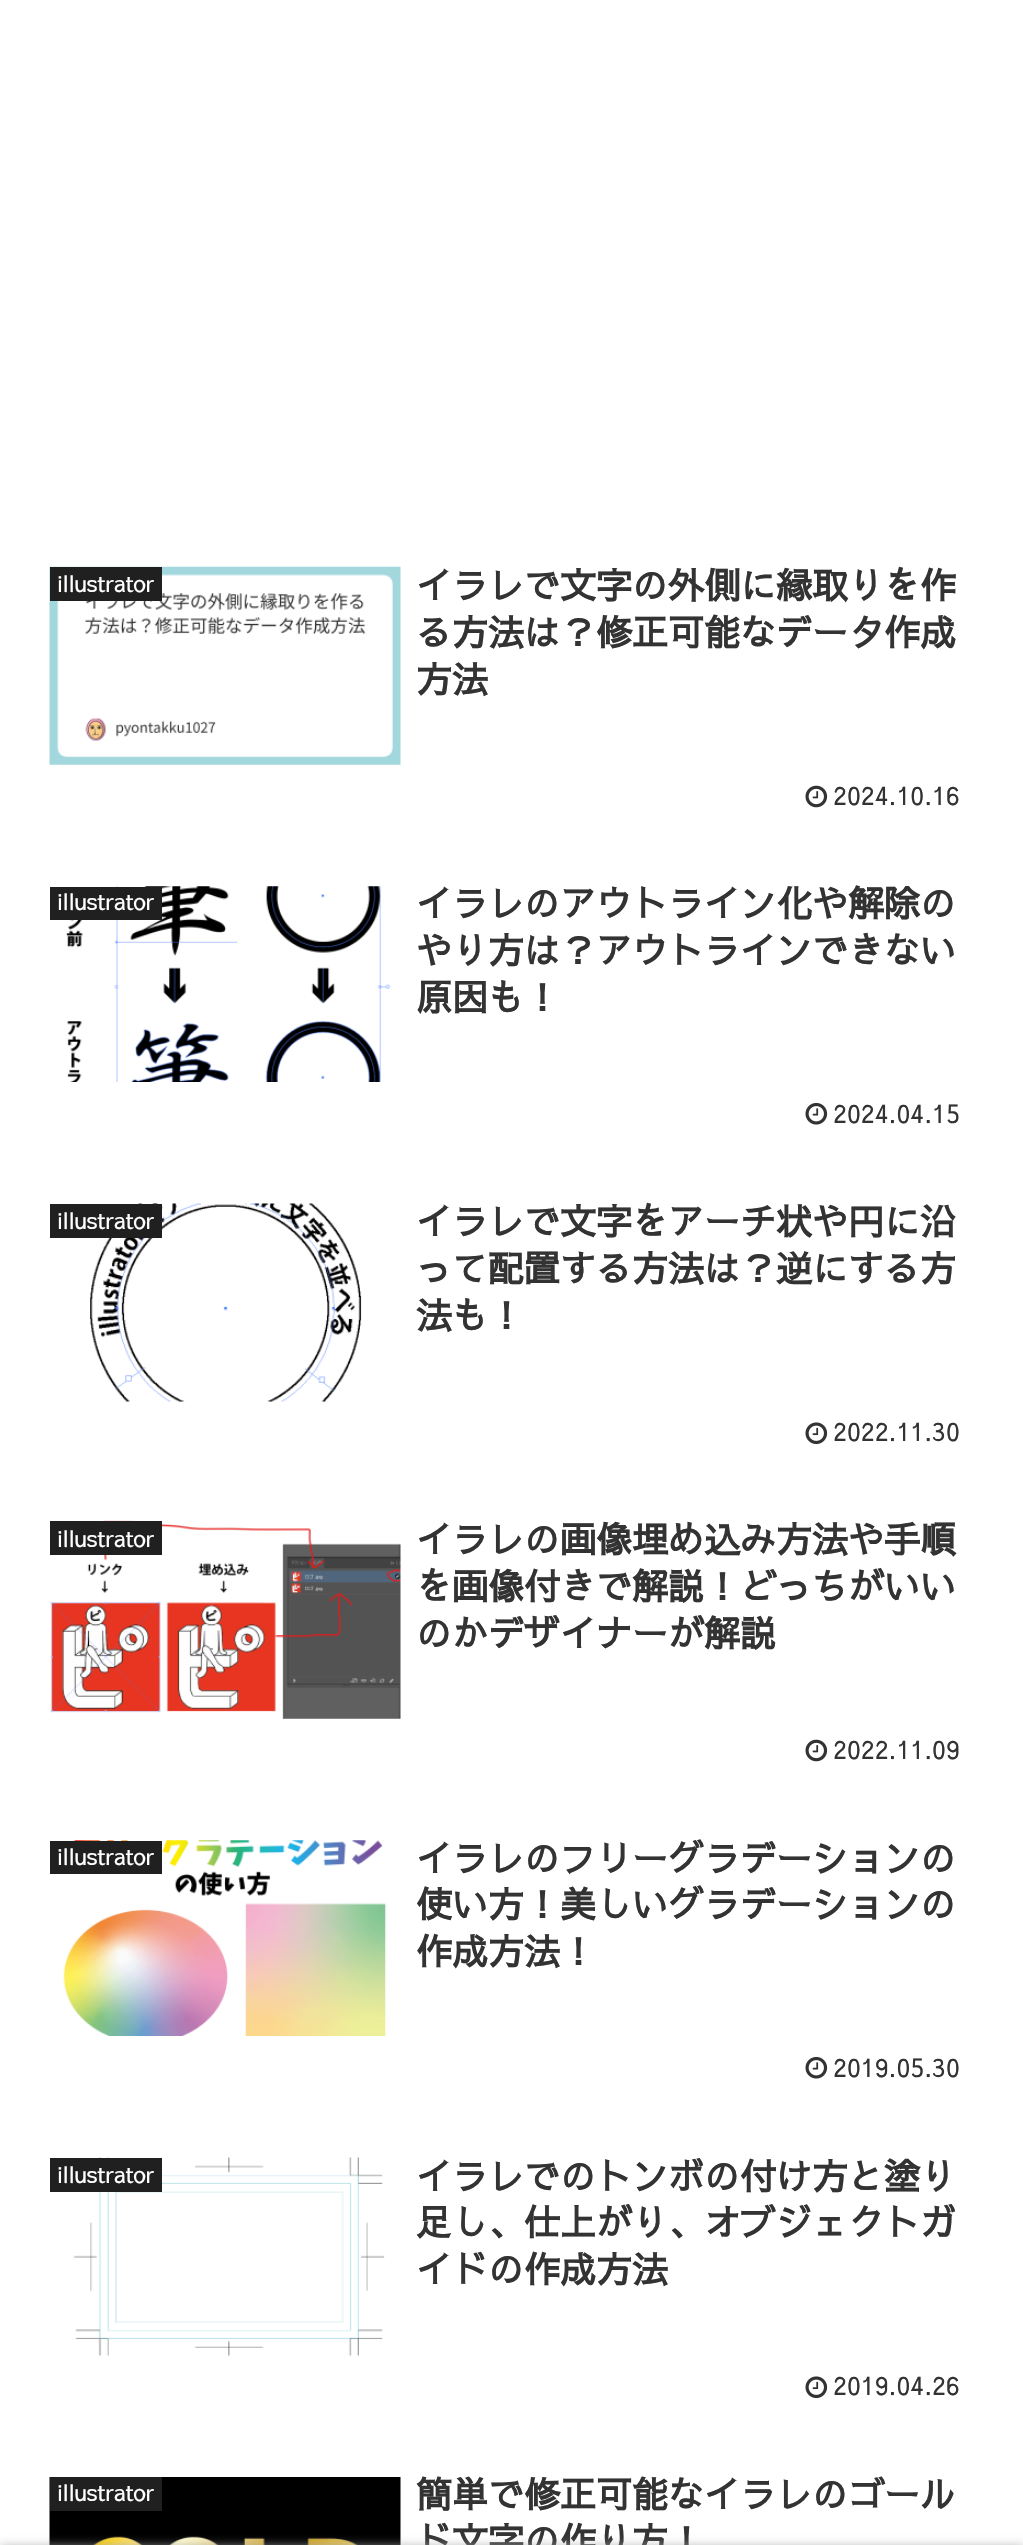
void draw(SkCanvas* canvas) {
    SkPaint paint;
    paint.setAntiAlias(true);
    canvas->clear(0xFFFFFFFF);
    canvas->drawImageRect(SkImages::DeferredFromEncodedData(SkData::MakeFromFileName("img1.png")), SkRect::MakeXYWH(49, 566, 352, 199), SkSamplingOptions());
    paint.setColor(0xFF202020);
    canvas->drawRect(SkRect::MakeXYWH(50, 567, 112, 34), paint);
    SkFont font1(fontMgr->matchFamilyStyle("Sawarabi Gothic", SkFontStyle::Normal()), 22.5f);
    font1.setSubpixel(true);
    paint.setColor(0xFFFFFFFF);
    canvas->drawString("illustrator", 57, 592, font1, paint);
    SkFont font2(fontMgr->matchFamilyStyle("Sawarabi Gothic", SkFontStyle::Bold()), 36);
    font2.setSubpixel(true);
    paint.setColor(0xFF333333);
    canvas->drawString("イラレで文字の外側に縁取りを作", 416, 599, font2, paint);
    canvas->drawString("る方法は？修正可能なデータ作成", 416, 646, font2, paint);
    canvas->drawString("方法", 416, 693, font2, paint);
    canvas->drawImageRect(SkImages::DeferredFromEncodedData(SkData::MakeFromFileName("img2.png")), SkRect::MakeXYWH(805, 785, 23, 23), SkSamplingOptions());
    SkFont font3(fontMgr->matchFamilyStyle("Sawarabi Gothic", SkFontStyle::Normal()), 25.25f);
    font3.setSubpixel(true);
    canvas->drawString("2024.10.16", 833, 805, font3, paint);
    canvas->drawImageRect(SkImages::DeferredFromEncodedData(SkData::MakeFromFileName("img3.png")), SkRect::MakeXYWH(66, 886, 325, 196), SkSamplingOptions());
    paint.setColor(0xFF202020);
    canvas->drawRect(SkRect::MakeXYWH(50, 887, 112, 33), paint);
    paint.setColor(0xFFFFFFFF);
    canvas->drawString("illustrator", 57, 910, font1, paint);
    paint.setColor(0xFF333333);
    canvas->drawString("イラレのアウトライン化や解除の", 416, 917, font2, paint);
    canvas->drawString("やり方は？アウトラインできない", 416, 964, font2, paint);
    canvas->drawString("原因も！", 416, 1011, font2, paint);
    canvas->drawImageRect(SkImages::DeferredFromEncodedData(SkData::MakeFromFileName("img4.png")), SkRect::MakeXYWH(805, 1102, 23, 23), SkSamplingOptions());
    canvas->drawString("2024.04.15", 833, 1123, font3, paint);
    canvas->drawImageRect(SkImages::DeferredFromEncodedData(SkData::MakeFromFileName("img5.png")), SkRect::MakeXYWH(90, 1203, 272, 199), SkSamplingOptions());
    paint.setColor(0xFF202020);
    canvas->drawRect(SkRect::MakeXYWH(50, 1204, 112, 34), paint);
    paint.setColor(0xFFFFFFFF);
    canvas->drawString("illustrator", 57, 1229, font1, paint);
    paint.setColor(0xFF333333);
    canvas->drawString("イラレで文字をアーチ状や円に沿", 416, 1235, font2, paint);
    canvas->drawString("って配置する方法は？逆にする方", 416, 1282, font2, paint);
    canvas->drawString("法も！", 416, 1329, font2, paint);
    canvas->drawImageRect(SkImages::DeferredFromEncodedData(SkData::MakeFromFileName("img6.png")), SkRect::MakeXYWH(805, 1422, 23, 23), SkSamplingOptions());
    canvas->drawString("2022.11.30", 833, 1441, font3, paint);
    canvas->drawImageRect(SkImages::DeferredFromEncodedData(SkData::MakeFromFileName("img7.png")), SkRect::MakeXYWH(50, 1520, 351, 199), SkSamplingOptions());
    paint.setColor(0xFF202020);
    canvas->drawRect(SkRect::MakeXYWH(50, 1521, 112, 34), paint);
    paint.setColor(0xFFFFFFFF);
    canvas->drawString("illustrator", 57, 1547, font1, paint);
    paint.setColor(0xFF333333);
    canvas->drawString("イラレの画像埋め込み方法や手順", 416, 1553, font2, paint);
    canvas->drawString("を画像付きで解説！どっちがいい", 416, 1600, font2, paint);
    canvas->drawString("のかデザイナーが解説", 416, 1647, font2, paint);
    canvas->drawImageRect(SkImages::DeferredFromEncodedData(SkData::MakeFromFileName("img2.png")), SkRect::MakeXYWH(805, 1739, 23, 23), SkSamplingOptions());
    canvas->drawString("2022.11.09", 833, 1759, font3, paint);
    canvas->drawImageRect(SkImages::DeferredFromEncodedData(SkData::MakeFromFileName("img8.png")), SkRect::MakeXYWH(63, 1840, 324, 196), SkSamplingOptions());
    paint.setColor(0xFF202020);
    canvas->drawRect(SkRect::MakeXYWH(50, 1841, 112, 33), paint);
    paint.setColor(0xFFFFFFFF);
    canvas->drawString("illustrator", 57, 1865, font1, paint);
    paint.setColor(0xFF333333);
    canvas->drawString("イラレのフリーグラデーションの", 416, 1872, font2, paint);
    canvas->drawString("使い方！美しいグラデーションの", 416, 1918, font2, paint);
    canvas->drawString("作成方法！", 416, 1965, font2, paint);
    canvas->drawImageRect(SkImages::DeferredFromEncodedData(SkData::MakeFromFileName("img4.png")), SkRect::MakeXYWH(805, 2056, 23, 23), SkSamplingOptions());
    canvas->drawString("2019.05.30", 833, 2077, font3, paint);
    canvas->drawImageRect(SkImages::DeferredFromEncodedData(SkData::MakeFromFileName("img9.png")), SkRect::MakeXYWH(73, 2157, 312, 199), SkSamplingOptions());
    paint.setColor(0xFF202020);
    canvas->drawRect(SkRect::MakeXYWH(50, 2158, 112, 34), paint);
    paint.setColor(0xFFFFFFFF);
    canvas->drawString("illustrator", 57, 2183, font1, paint);
    paint.setColor(0xFF333333);
    canvas->drawString("イラレでのトンボの付け方と塗り", 416, 2190, font2, paint);
    canvas->drawString("足し、仕上がり、オブジェクトガ", 416, 2236, font2, paint);
    canvas->drawString("イドの作成方法", 416, 2283, font2, paint);
    canvas->drawImageRect(SkImages::DeferredFromEncodedData(SkData::MakeFromFileName("img6.png")), SkRect::MakeXYWH(805, 2376, 23, 23), SkSamplingOptions());
    canvas->drawString("2019.04.26", 833, 2395, font3, paint);
    canvas->drawImageRect(SkImages::DeferredFromEncodedData(SkData::MakeFromFileName("img10.png")), SkRect::MakeXYWH(49, 2477, 352, 68), SkSamplingOptions());
    paint.setColor(0xFF202020);
    canvas->drawRect(SkRect::MakeXYWH(50, 2477, 112, 34), paint);
    paint.setColor(0xFFFFFFFF);
    canvas->drawString("illustrator", 57, 2501, font1, paint);
    paint.setColor(0xFF333333);
    canvas->drawString("簡単で修正可能なイラレのゴール", 416, 2508, font2, paint);
    canvas->drawString("ド文字の作り方！", 416, 2554, font2, paint);
    paint.setColor(0xFFA9A9A9);
    paint.setMaskFilter(SkMaskFilter::MakeBlur(kNormal_SkBlurStyle, 5.5f));
    canvas->drawRect(SkRect::MakeXYWH(0, 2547, 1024, 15), paint);
    paint.setMaskFilter(nullptr);
}
